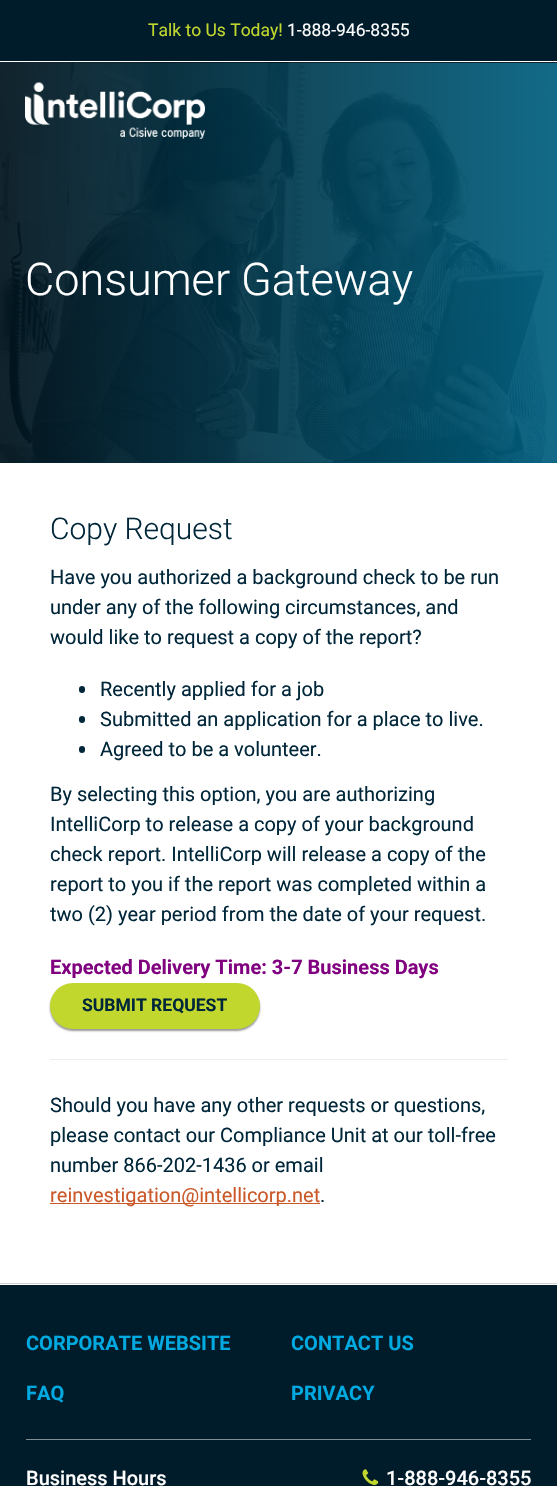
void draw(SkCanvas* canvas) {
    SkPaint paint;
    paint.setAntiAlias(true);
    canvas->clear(0xFFFFFFFF);
    paint.setColor(0xFF001C2B);
    canvas->drawRect(SkRect::MakeXYWH(0, 0, 557, 463), paint);
    paint.setColor(0xFFFFFFFF);
    canvas->drawRect(SkRect::MakeXYWH(0, 61, 557, 1), paint);
    SkFont font1(fontMgr->matchFamilyStyle("Roboto", SkFontStyle::Normal()), 17.5f);
    font1.setSubpixel(true);
    paint.setColor(0xFFC1D72E);
    canvas->drawString("Talk to Us Today!", 148, 36, font1, paint);
    paint.setColor(0xFFFFFFFF);
    canvas->drawString("1-888-946-8355", 287, 36, font1, paint);
    canvas->drawImageRect(SkImages::DeferredFromEncodedData(SkData::MakeFromFileName("img2.png")), SkRect::MakeXYWH(0, 62, 557, 401), SkSamplingOptions());
    {
        const SkColor colors[] = {0x80001C2B, 0x8000A9E0};
        const float stops[] = {0, 1};
        const SkPoint ends[] = {{0, 263}, {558, 263}};
        paint.setShader(SkGradientShader::MakeLinear(ends, colors, stops, 2, SkTileMode::kClamp));
        paint.setAlpha(255);
    }
    canvas->drawRect(SkRect::MakeXYWH(0, 63, 557, 400), paint);
    canvas->drawImageRect(SkImages::DeferredFromEncodedData(SkData::MakeFromFileName("img1.png")), SkRect::MakeXYWH(25, 82, 180, 57), SkSamplingOptions());
    SkFont font2(fontMgr->matchFamilyStyle("Roboto", SkFontStyle(300, SkFontStyle::kNormal_Width, SkFontStyle::kUpright_Slant)), 45);
    font2.setSubpixel(true);
    paint.setShader(nullptr);
    paint.setColor(0xFFFFFFFF);
    canvas->drawString("Consumer Gateway", 25, 295, font2, paint);
    SkFont font3(fontMgr->matchFamilyStyle("Roboto", SkFontStyle(300, SkFontStyle::kNormal_Width, SkFontStyle::kUpright_Slant)), 30);
    font3.setSubpixel(true);
    paint.setColor(0xFF00263A);
    canvas->drawString("Copy Request", 50, 539, font3, paint);
    SkFont font4(fontMgr->matchFamilyStyle("Roboto", SkFontStyle::Normal()), 20);
    font4.setSubpixel(true);
    canvas->drawString("Have you authorized a background check to be run", 50, 584, font4, paint);
    canvas->drawString("under any of the following circumstances, and", 50, 614, font4, paint);
    canvas->drawString("would like to request a copy of the report?", 50, 644, font4, paint);
    canvas->drawRoundRect(SkRect::MakeXYWH(79, 686, 6, 7), 3, 3, paint);
    canvas->drawString("Recently applied for a job", 100, 696, font4, paint);
    canvas->drawRoundRect(SkRect::MakeXYWH(79, 716, 6, 7), 3, 3, paint);
    canvas->drawString("Submitted an application for a place to live.", 100, 726, font4, paint);
    canvas->drawRoundRect(SkRect::MakeXYWH(79, 746, 6, 7), 3, 3, paint);
    canvas->drawString("Agreed to be a volunteer.", 100, 756, font4, paint);
    canvas->drawString("By selecting this option, you are authorizing", 50, 801, font4, paint);
    canvas->drawString("IntelliCorp to release a copy of your background", 50, 831, font4, paint);
    canvas->drawString("check report. IntelliCorp will release a copy of the", 50, 861, font4, paint);
    canvas->drawString("report to you if the report was completed within a", 50, 891, font4, paint);
    canvas->drawString("two (2) year period from the date of your request.", 50, 921, font4, paint);
    SkFont font5(fontMgr->matchFamilyStyle("Roboto", SkFontStyle::Bold()), 20);
    font5.setSubpixel(true);
    paint.setColor(0xFF800080);
    canvas->drawString("Expected Delivery Time: 3-7 Business Days", 50, 974, font5, paint);
    paint.setColor(0x66000000);
    paint.setMaskFilter(SkMaskFilter::MakeBlur(kNormal_SkBlurStyle, 1));
    canvas->drawRoundRect(SkRect::MakeXYWH(50, 985, 210, 46), 23, 23, paint);
    paint.setMaskFilter(nullptr);
    paint.setColor(0xFFC1D72E);
    canvas->drawRoundRect(SkRect::MakeXYWH(50, 983, 210, 46), 23, 23, paint);
    SkFont font6(fontMgr->matchFamilyStyle("Roboto", SkFontStyle::Bold()), 17.5f);
    font6.setSubpixel(true);
    paint.setColor(0xFF00263A);
    canvas->drawString("SUBMIT REQUEST", 82, 1011, font6, paint);
    paint.setColor(0xFFEEEEEE);
    canvas->drawRect(SkRect::MakeXYWH(50, 1059, 458, 1), paint);
    paint.setColor(0xFF00263A);
    canvas->drawString("Should you have any other requests or questions,", 50, 1112, font4, paint);
    canvas->drawString("please contact our Compliance Unit at our toll-free", 50, 1142, font4, paint);
    canvas->drawString("number 866-202-1436 or email", 50, 1172, font4, paint);
    paint.setColor(0xFFCA5828);
    canvas->drawRect(SkRect::MakeXYWH(50, 1203, 270, 1), paint);
    canvas->drawString("reinvestigation@intellicorp.net", 50, 1202, font4, paint);
    paint.setColor(0xFF00263A);
    canvas->drawString(".", 320, 1202, font4, paint);
    paint.setColor(0xFFD2D4D4);
    canvas->drawRect(SkRect::MakeXYWH(0, 1283, 557, 1), paint);
    paint.setColor(0xFF001C2B);
    canvas->drawRect(SkRect::MakeXYWH(0, 1285, 557, 201), paint);
    paint.setColor(0xFF808E95);
    canvas->drawRect(SkRect::MakeXYWH(26, 1439, 505, 1), paint);
    paint.setColor(0xFF00A9E0);
    canvas->drawString("CORPORATE WEBSITE", 26, 1350, font5, paint);
    canvas->drawString("CONTACT US", 291, 1350, font5, paint);
    canvas->drawString("FAQ", 26, 1400, font5, paint);
    canvas->drawString("PRIVACY", 291, 1400, font5, paint);
    SkFont font7(fontMgr->matchFamilyStyle("Roboto", SkFontStyle(500, SkFontStyle::kNormal_Width, SkFontStyle::kUpright_Slant)), 20);
    font7.setSubpixel(true);
    paint.setColor(0xFFFFFFFF);
    canvas->drawString("Business Hours", 26, 1485, font7, paint);
    canvas->drawImageRect(SkImages::DeferredFromEncodedData(SkData::MakeFromFileName("img3.png")), SkRect::MakeXYWH(362, 1469, 17, 16), SkSamplingOptions());
    canvas->drawString("1-888-946-8355", 386, 1485, font7, paint);
}
